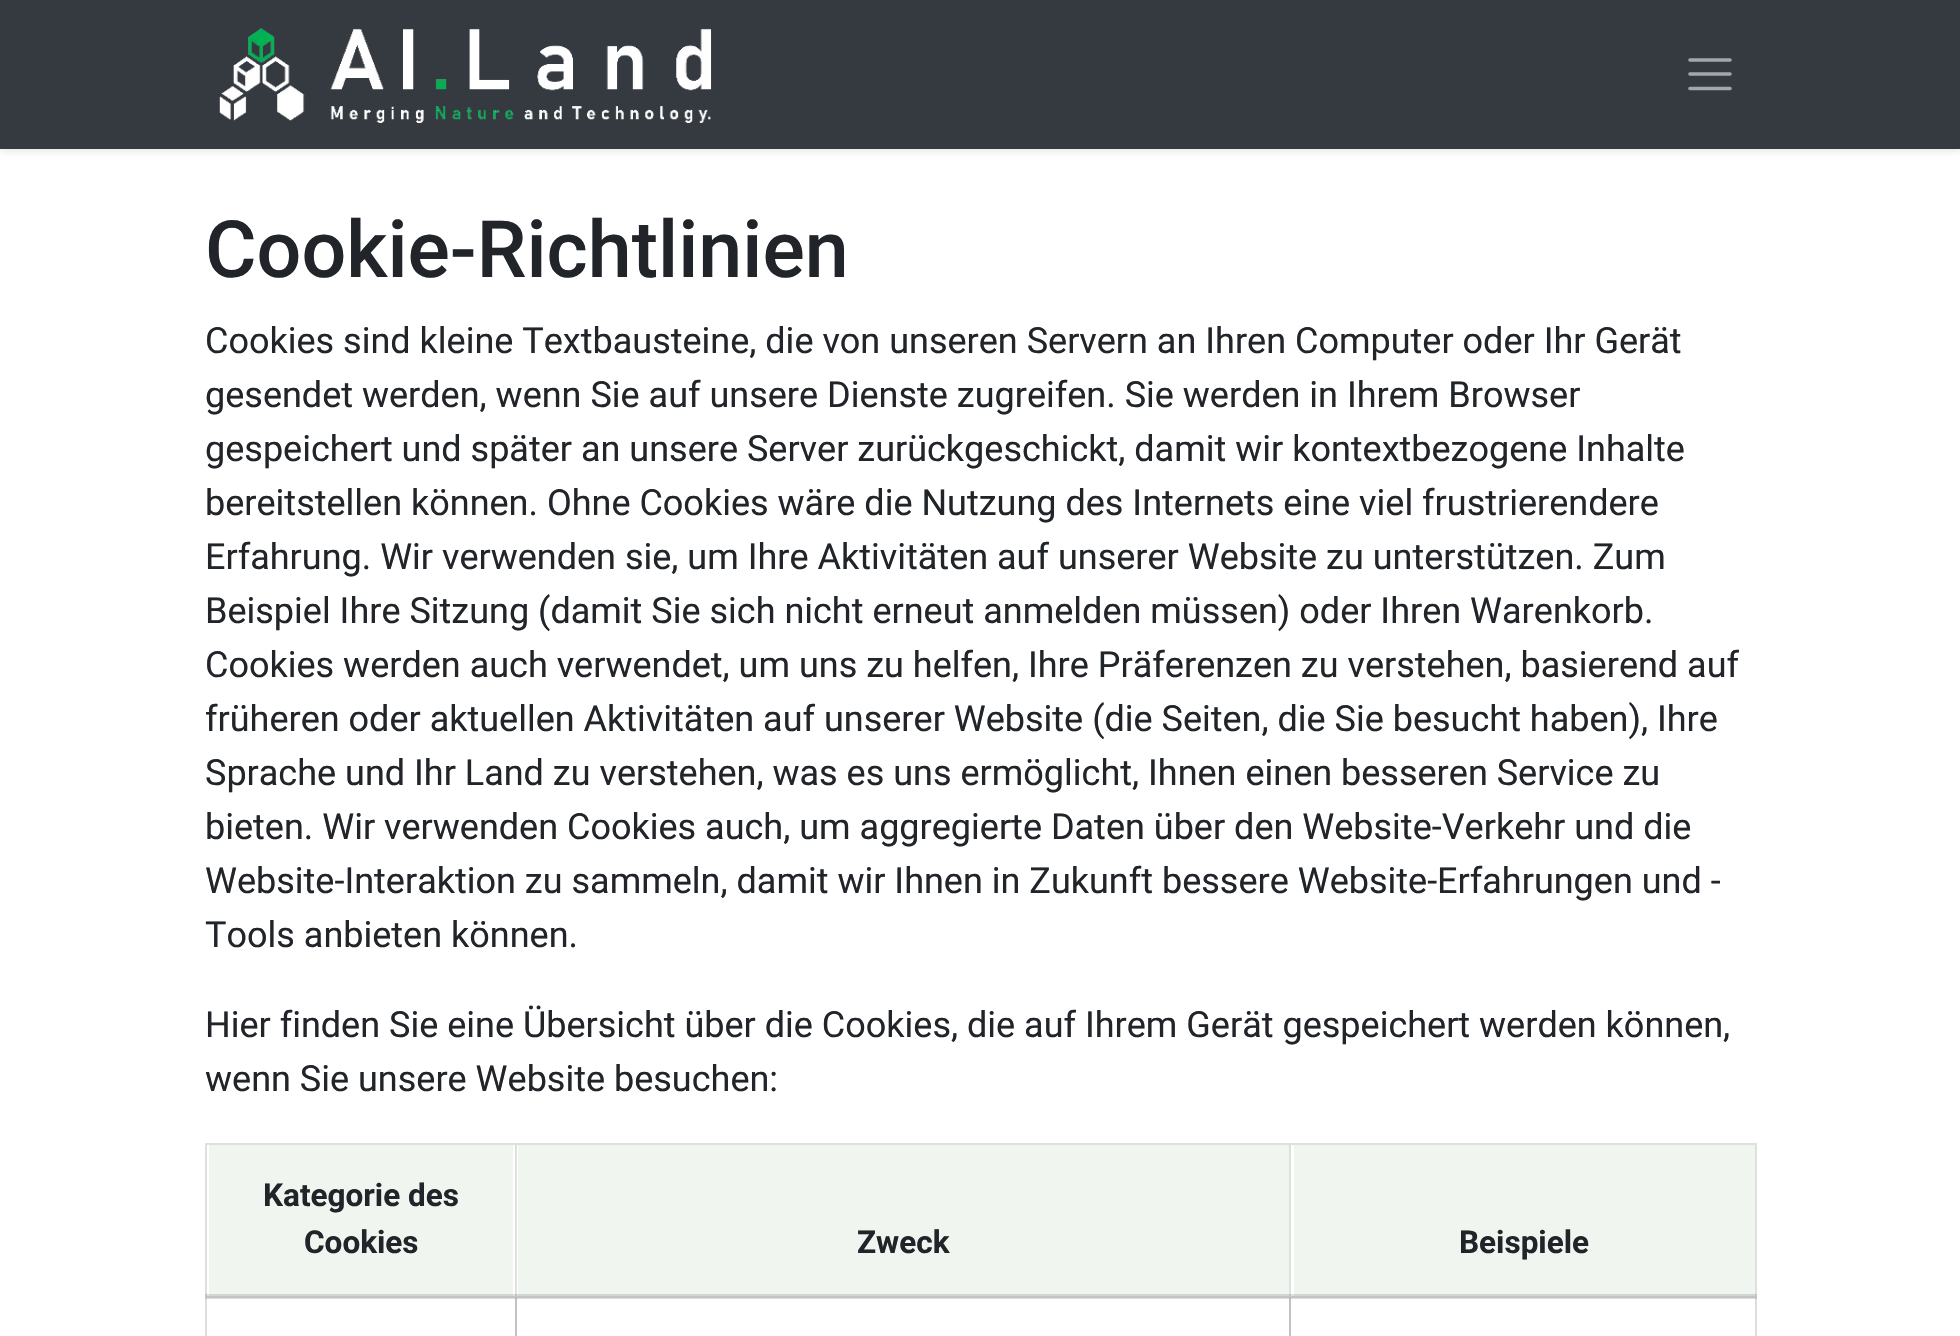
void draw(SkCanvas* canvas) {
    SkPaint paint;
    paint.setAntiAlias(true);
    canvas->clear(0xFFFFFFFF);
    paint.setColor(0xFFDEDEDF);
    canvas->drawRect(SkRect::MakeXYWH(205, 1294, 1552, 5), paint);
    canvas->drawRect(SkRect::MakeXYWH(205, 1296, 2, 40), paint);
    paint.setColor(0xFFC2C2C4);
    canvas->drawRect(SkRect::MakeXYWH(205, 1296, 2, 3), paint);
    canvas->drawRect(SkRect::MakeXYWH(515, 1296, 2, 40), paint);
    paint.setColor(0xFFAAAAAD);
    canvas->drawRect(SkRect::MakeXYWH(515, 1296, 2, 3), paint);
    paint.setColor(0xFFC2C2C4);
    canvas->drawRect(SkRect::MakeXYWH(1289, 1296, 2, 40), paint);
    paint.setColor(0xFFAAAAAD);
    canvas->drawRect(SkRect::MakeXYWH(1289, 1296, 2, 3), paint);
    paint.setColor(0xFFDEDEDF);
    canvas->drawRect(SkRect::MakeXYWH(1755, 1296, 2, 40), paint);
    paint.setColor(0xFFC2C2C4);
    canvas->drawRect(SkRect::MakeXYWH(1755, 1296, 2, 3), paint);
    paint.setColor(0x1A000000);
    paint.setMaskFilter(SkMaskFilter::MakeBlur(kNormal_SkBlurStyle, 3.5f));
    canvas->drawRect(SkRect::MakeXYWH(0, 2, 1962, 149), paint);
    paint.setMaskFilter(nullptr);
    paint.setColor(0xFF343A40);
    canvas->drawRect(SkRect::MakeXYWH(0, 0, 1960, 149), paint);
    canvas->drawImageRect(SkImages::DeferredFromEncodedData(SkData::MakeFromFileName("img1.png")), SkRect::MakeXYWH(219, 28, 493, 95), SkSamplingOptions());
    paint.setStyle(SkPaint::kStroke_Style);
    paint.setStrokeWidth(3.6f);
    paint.setStrokeCap(SkPaint::kRound_Cap);
    paint.setColor(0xFFA4A6A9);
    canvas->drawPath(SkPathBuilder().moveTo(1690, 60).lineTo(1730, 60).moveTo(1690, 74).lineTo(1730, 74).moveTo(1690, 88.5f).lineTo(1730, 88.5f).detach(), paint);
    SkFont font1(fontMgr->matchFamilyStyle("Roboto", SkFontStyle(500, SkFontStyle::kNormal_Width, SkFontStyle::kUpright_Slant)), 79);
    font1.setSubpixel(true);
    paint.setStyle(SkPaint::kFill_Style);
    paint.setColor(0xFF212529);
    canvas->drawString("Cookie-Richtlinien", 205, 277, font1, paint);
    SkFont font2(fontMgr->matchFamilyStyle("Roboto", SkFontStyle::Normal()), 36);
    font2.setSubpixel(true);
    canvas->drawString("Cookies sind kleine Textbausteine, die von unseren Servern an Ihren Computer oder Ihr Gerät", 205, 353, font2, paint);
    canvas->drawString("gesendet werden, wenn Sie auf unsere Dienste zugreifen. Sie werden in Ihrem Browser", 205, 407, font2, paint);
    canvas->drawString("gespeichert und später an unsere Server zurückgeschickt, damit wir kontextbezogene Inhalte", 205, 461, font2, paint);
    canvas->drawString("bereitstellen können. Ohne Cookies wäre die Nutzung des Internets eine viel frustrierendere", 205, 515, font2, paint);
    canvas->drawString("Erfahrung. Wir verwenden sie, um Ihre Aktivitäten auf unserer Website zu unterstützen. Zum", 205, 569, font2, paint);
    canvas->drawString("Beispiel Ihre Sitzung (damit Sie sich nicht erneut anmelden müssen) oder Ihren Warenkorb.", 205, 623, font2, paint);
    canvas->drawString("Cookies werden auch verwendet, um uns zu helfen, Ihre Präferenzen zu verstehen, basierend auf", 205, 677, font2, paint);
    canvas->drawString("früheren oder aktuellen Aktivitäten auf unserer Website (die Seiten, die Sie besucht haben), Ihre", 205, 731, font2, paint);
    canvas->drawString("Sprache und Ihr Land zu verstehen, was es uns ermöglicht, Ihnen einen besseren Service zu", 205, 785, font2, paint);
    canvas->drawString("bieten. Wir verwenden Cookies auch, um aggregierte Daten über den Website-Verkehr und die", 205, 839, font2, paint);
    canvas->drawString("Website-Interaktion zu sammeln, damit wir Ihnen in Zukunft bessere Website-Erfahrungen und -", 205, 893, font2, paint);
    canvas->drawString("Tools anbieten können.", 205, 947, font2, paint);
    canvas->drawString("Hier finden Sie eine Übersicht über die Cookies, die auf Ihrem Gerät gespeichert werden können,", 205, 1037, font2, paint);
    canvas->drawString("wenn Sie unsere Website besuchen:", 205, 1091, font2, paint);
    paint.setColor(0xFFDDE0DC);
    canvas->drawRect(SkRect::MakeXYWH(205, 1143, 1552, 2), paint);
    paint.setColor(0xFFC1C4C1);
    canvas->drawRect(SkRect::MakeXYWH(205, 1296, 1552, 2), paint);
    paint.setColor(0xFFF1F5F0);
    canvas->drawRect(SkRect::MakeXYWH(209, 1145, 304, 149), paint);
    paint.setColor(0xFFD2D6D2);
    canvas->drawRect(SkRect::MakeXYWH(209, 1294, 304, 2), paint);
    paint.setColor(0xFFDDE0DC);
    canvas->drawRect(SkRect::MakeXYWH(205, 1143, 2, 155), paint);
    paint.setColor(0xFFC1C4C1);
    canvas->drawRect(SkRect::MakeXYWH(205, 1294, 2, 4), paint);
    SkFont font3(fontMgr->matchFamilyStyle("Roboto", SkFontStyle::Bold()), 31.5f);
    font3.setSubpixel(true);
    paint.setColor(0xFF212529);
    canvas->drawString("Kategorie des", 263, 1206, font3, paint);
    canvas->drawString("Cookies", 304, 1253, font3, paint);
    paint.setColor(0xFFF1F5F0);
    canvas->drawRect(SkRect::MakeXYWH(518, 1145, 771, 149), paint);
    paint.setColor(0xFFD2D6D2);
    canvas->drawRect(SkRect::MakeXYWH(518, 1294, 771, 2), paint);
    paint.setColor(0xFFDDE0DC);
    canvas->drawRect(SkRect::MakeXYWH(515, 1143, 2, 155), paint);
    paint.setColor(0xFFC1C4C1);
    canvas->drawRect(SkRect::MakeXYWH(515, 1294, 2, 4), paint);
    paint.setColor(0xFF212529);
    canvas->drawString("Zweck", 857, 1253, font3, paint);
    paint.setColor(0xFFF1F5F0);
    canvas->drawRect(SkRect::MakeXYWH(1294, 1145, 461, 149), paint);
    paint.setColor(0xFFD2D6D2);
    canvas->drawRect(SkRect::MakeXYWH(1294, 1294, 461, 2), paint);
    paint.setColor(0xFFDDE0DC);
    canvas->drawRect(SkRect::MakeXYWH(1755, 1143, 2, 155), paint);
    paint.setColor(0xFFC1C4C1);
    canvas->drawRect(SkRect::MakeXYWH(1755, 1294, 2, 4), paint);
    paint.setColor(0xFFDDE0DC);
    canvas->drawRect(SkRect::MakeXYWH(1289, 1143, 2, 155), paint);
    paint.setColor(0xFFC1C4C1);
    canvas->drawRect(SkRect::MakeXYWH(1289, 1294, 2, 4), paint);
    paint.setColor(0xFF212529);
    canvas->drawString("Beispiele", 1459, 1253, font3, paint);
}
